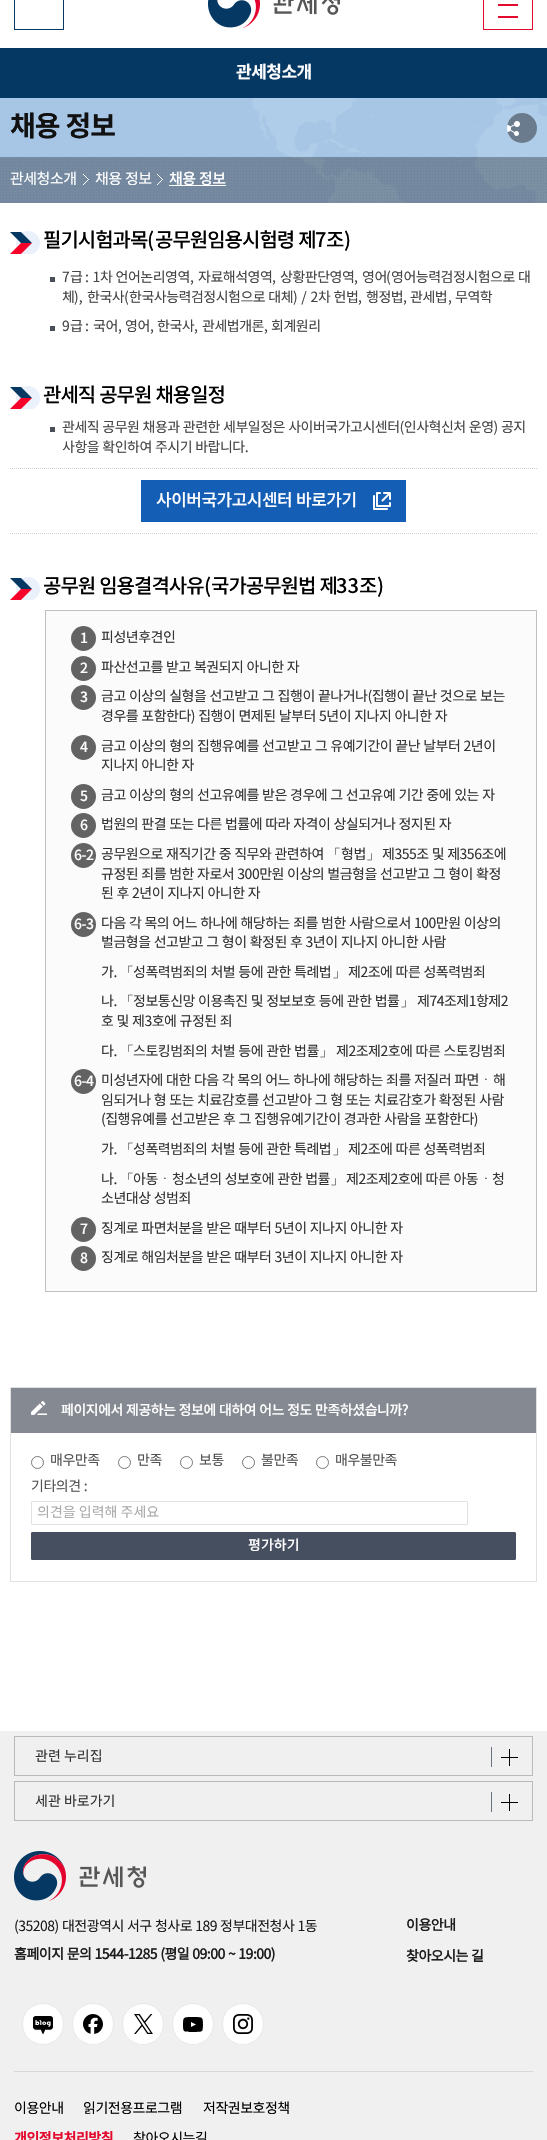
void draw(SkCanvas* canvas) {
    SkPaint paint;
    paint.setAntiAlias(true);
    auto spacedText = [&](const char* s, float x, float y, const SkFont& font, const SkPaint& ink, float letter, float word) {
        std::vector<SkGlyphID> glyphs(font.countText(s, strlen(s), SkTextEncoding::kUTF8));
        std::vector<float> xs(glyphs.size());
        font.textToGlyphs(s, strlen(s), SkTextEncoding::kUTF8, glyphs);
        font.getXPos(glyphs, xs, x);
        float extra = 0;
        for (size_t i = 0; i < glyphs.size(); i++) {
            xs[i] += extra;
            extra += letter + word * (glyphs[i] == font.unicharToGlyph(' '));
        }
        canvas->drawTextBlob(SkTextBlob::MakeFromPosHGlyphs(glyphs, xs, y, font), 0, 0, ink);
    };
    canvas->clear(0xFFFFFFFF);
    paint.setStyle(SkPaint::kStroke_Style);
    paint.setStrokeWidth(1);
    paint.setColor(0xFF053863);
    canvas->drawRect(SkRect::MakeXYWH(14.5f, -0.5f, 49, 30), paint);
    canvas->drawImageRect(SkImages::DeferredFromEncodedData(SkData::MakeFromFileName("img1.png")), SkRect::MakeXYWH(208, 0, 132, 28), SkSamplingOptions());
    paint.setColor(0xFFE40A2E);
    canvas->drawRect(SkRect::MakeXYWH(483.5f, -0.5f, 49, 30), paint);
    paint.setStyle(SkPaint::kFill_Style);
    canvas->drawRect(SkRect::MakeXYWH(498, 4, 20, 2), paint);
    canvas->drawRect(SkRect::MakeXYWH(498, 16, 20, 2), paint);
    paint.setColor(0xFF053863);
    canvas->drawRect(SkRect::MakeXYWH(0, 48, 547, 50), paint);
    SkFont font1(fontMgr->matchFamilyStyle("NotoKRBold", SkFontStyle::Bold()), 17);
    font1.setSubpixel(true);
    paint.setColor(0xFFFFFFFF);
    spacedText("관세청소개", 236, 78, font1, paint, -0.5f, 0);
    canvas->drawImageRect(SkImages::DeferredFromEncodedData(SkData::MakeFromFileName("img2.png")), SkRect::MakeXYWH(0, 98, 547, 105), SkSamplingOptions());
    SkFont font2(fontMgr->matchFamilyStyle("NotoKRBold", SkFontStyle::Bold()), 28);
    font2.setSubpixel(true);
    paint.setColor(0xFF111111);
    spacedText("채용 정보", 10, 136, font2, paint, -1, 0.5f);
    canvas->drawImageRect(SkImages::DeferredFromEncodedData(SkData::MakeFromFileName("img3.png")), SkRect::MakeXYWH(507, 113, 30, 30), SkSamplingOptions());
    canvas->drawImageRect(SkImages::DeferredFromEncodedData(SkData::MakeFromFileName("img4.png")), SkRect::MakeXYWH(0, 157, 547, 46), SkSamplingOptions());
    SkFont font3(fontMgr->matchFamilyStyle("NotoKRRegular", SkFontStyle::Normal()), 15);
    font3.setSubpixel(true);
    paint.setColor(0xFFFFFFFF);
    spacedText("관세청소개", 10, 184, font3, paint, -0.5f, 0);
    canvas->drawImageRect(SkImages::DeferredFromEncodedData(SkData::MakeFromFileName("img5.png")), SkRect::MakeXYWH(83, 174, 6, 11), SkSamplingOptions());
    spacedText("채용 정보", 95, 184, font3, paint, -0.5f, 0.5f);
    canvas->drawImageRect(SkImages::DeferredFromEncodedData(SkData::MakeFromFileName("img6.png")), SkRect::MakeXYWH(157, 174, 6, 11), SkSamplingOptions());
    canvas->drawRect(SkRect::MakeXYWH(169, 185, 57, 1), paint);
    SkFont font4(fontMgr->matchFamilyStyle("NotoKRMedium", SkFontStyle(500, SkFontStyle::kNormal_Width, SkFontStyle::kUpright_Slant)), 15);
    font4.setSubpixel(true);
    spacedText("채용 정보", 169, 184, font4, paint, -0.5f, 0.5f);
    canvas->drawImageRect(SkImages::DeferredFromEncodedData(SkData::MakeFromFileName("img7.png")), SkRect::MakeXYWH(10, 231, 30, 23), SkSamplingOptions());
    SkFont font5(fontMgr->matchFamilyStyle("NotoKRMedium", SkFontStyle(500, SkFontStyle::kNormal_Width, SkFontStyle::kUpright_Slant)), 20);
    font5.setSubpixel(true);
    paint.setColor(0xFF000000);
    spacedText("필기시험과목", 43, 247, font5, paint, -1, 0);
    canvas->drawString("(", 147, 247, font5, paint);
    spacedText("공무원임용시험령 제", 155, 247, font5, paint, -1, 0.5f);
    canvas->drawString("7", 315, 247, font5, paint);
    spacedText("조", 326, 247, font5, paint, -1, 0);
    canvas->drawString(")", 344, 247, font5, paint);
    paint.setColor(0xFF4A4E59);
    canvas->drawRect(SkRect::MakeXYWH(50, 277, 5, 5), paint);
    SkFont font6(fontMgr->matchFamilyStyle("NotoKRRegular", SkFontStyle::Normal()), 14);
    font6.setSubpixel(true);
    paint.setColor(0xFF444444);
    canvas->drawString("7", 62, 282, font6, paint);
    spacedText("급", 70, 282, font6, paint, -0.5f, 0);
    spacedText(": 1", 85, 282, font6, paint, 0, 0.5f);
    spacedText("차 언어논리영역", 100, 282, font6, paint, -0.5f, 0.5f);
    spacedText("자료해석영역", 198, 282, font6, paint, -0.5f, 0);
    spacedText("상황판단영역", 280, 282, font6, paint, -0.5f, 0);
    spacedText("영어", 362, 282, font6, paint, -0.5f, 0);
    canvas->drawString("(", 386, 282, font6, paint);
    spacedText("영어능력검정시험으로 대", 391, 282, font6, paint, -0.5f, 0.5f);
    canvas->drawString(",", 190, 282, font6, paint);
    canvas->drawString(",", 272, 282, font6, paint);
    canvas->drawString(",", 354, 282, font6, paint);
    spacedText("체", 62, 302, font6, paint, -0.5f, 0);
    canvas->drawString("),", 74, 302, font6, paint);
    spacedText("한국사", 87, 302, font6, paint, -0.5f, 0);
    canvas->drawString("(", 124, 302, font6, paint);
    spacedText("한국사능력검정시험으로 대체", 129, 302, font6, paint, -0.5f, 0.5f);
    spacedText(") / 2", 293, 302, font6, paint, 0, 0.5f);
    spacedText("차 헌법", 318, 302, font6, paint, -0.5f, 0.5f);
    canvas->drawString(",", 358, 302, font6, paint);
    spacedText("행정법", 366, 302, font6, paint, -0.5f, 0);
    canvas->drawString(",", 403, 302, font6, paint);
    spacedText("관세법", 410, 302, font6, paint, -0.5f, 0);
    canvas->drawString(",", 448, 302, font6, paint);
    spacedText("무역학", 455, 302, font6, paint, -0.5f, 0);
    paint.setColor(0xFF4A4E59);
    canvas->drawRect(SkRect::MakeXYWH(50, 326, 5, 5), paint);
    paint.setColor(0xFF444444);
    canvas->drawString("9", 62, 331, font6, paint);
    spacedText("급", 70, 331, font6, paint, -0.5f, 0);
    canvas->drawString(":", 85, 331, font6, paint);
    spacedText("국어", 93, 331, font6, paint, -0.5f, 0);
    spacedText("영어", 125, 331, font6, paint, -0.5f, 0);
    spacedText("한국사", 157, 331, font6, paint, -0.5f, 0);
    spacedText("관세법개론", 202, 331, font6, paint, -0.5f, 0);
    spacedText("회계원리", 271, 331, font6, paint, -0.5f, 0);
    canvas->drawString(",", 118, 331, font6, paint);
    canvas->drawString(",", 150, 331, font6, paint);
    canvas->drawString(",", 194, 331, font6, paint);
    canvas->drawString(",", 264, 331, font6, paint);
    canvas->drawImageRect(SkImages::DeferredFromEncodedData(SkData::MakeFromFileName("img7.png")), SkRect::MakeXYWH(10, 386, 30, 23), SkSamplingOptions());
    paint.setColor(0xFF000000);
    spacedText("관세직 공무원 채용일정", 43, 402, font5, paint, -1, 0.5f);
    paint.setColor(0xFF4A4E59);
    canvas->drawRect(SkRect::MakeXYWH(50, 427, 5, 5), paint);
    paint.setColor(0xFF444444);
    spacedText("관세직 공무원 채용과 관련한 세부일정은 사이버국가고시센터(인사혁신처 운영) 공지", 62, 432, font6, paint, -0.5f, 0.5f);
    spacedText("사항을 확인하여 주시기 바랍니다.", 62, 452, font6, paint, -0.5f, 0.5f);
    paint.setStyle(SkPaint::kStroke_Style);
    paint.setColor(0xFFD2D2D2);
    paint.setPathEffect(SkDashPathEffect::Make({{1, 1}}, 0));
    canvas->drawPath(SkPathBuilder().moveTo(10, 468.5f).lineTo(537, 468.5f).detach(), paint);
    paint.setPathEffect(nullptr);
    paint.setStyle(SkPaint::kFill_Style);
    paint.setColor(0xFF155EB6);
    canvas->drawRect(SkRect::MakeXYWH(141, 480, 265, 42), paint);
    SkFont font7(fontMgr->matchFamilyStyle("NotoKRMedium", SkFontStyle(500, SkFontStyle::kNormal_Width, SkFontStyle::kUpright_Slant)), 17);
    font7.setSubpixel(true);
    paint.setColor(0xFFFFFFFF);
    spacedText("사이버국가고시센터 바로가기", 156, 506, font7, paint, -0.5f, 0.5f);
    canvas->drawImageRect(SkImages::DeferredFromEncodedData(SkData::MakeFromFileName("img8.png")), SkRect::MakeXYWH(373, 492, 18, 18), SkSamplingOptions());
    paint.setStyle(SkPaint::kStroke_Style);
    paint.setColor(0xFFD2D2D2);
    paint.setPathEffect(SkDashPathEffect::Make({{1, 1}}, 0));
    canvas->drawPath(SkPathBuilder().moveTo(10, 533.5f).lineTo(537, 533.5f).detach(), paint);
    paint.setPathEffect(nullptr);
    canvas->drawImageRect(SkImages::DeferredFromEncodedData(SkData::MakeFromFileName("img7.png")), SkRect::MakeXYWH(10, 577, 30, 23), SkSamplingOptions());
    paint.setStyle(SkPaint::kFill_Style);
    paint.setColor(0xFF000000);
    spacedText("공무원 임용결격사유", 43, 593, font5, paint, -1, 0.5f);
    canvas->drawString("(", 204, 593, font5, paint);
    spacedText("국가공무원법 제", 211, 593, font5, paint, -1, 0.5f);
    canvas->drawString("33", 336, 593, font5, paint);
    spacedText("조", 359, 593, font5, paint, -1, 0);
    canvas->drawString(")", 377, 593, font5, paint);
    paint.setColor(0xFFFBFBFB);
    canvas->drawRect(SkRect::MakeXYWH(45.5f, 610.5f, 491, 681), paint);
    paint.setStyle(SkPaint::kStroke_Style);
    paint.setColor(0xFFBFBFBF);
    canvas->drawRect(SkRect::MakeXYWH(45.5f, 610.5f, 491, 681), paint);
    paint.setStyle(SkPaint::kFill_Style);
    paint.setColor(0xFF636363);
    canvas->drawCircle(83.5f, 638.5f, 12.5f, paint);
    SkFont font8(fontMgr->matchFamilyStyle("NotoKRMedium", SkFontStyle(500, SkFontStyle::kNormal_Width, SkFontStyle::kUpright_Slant)), 14);
    font8.setSubpixel(true);
    paint.setColor(0xFFFFFFFF);
    spacedText("1", 80, 643, font8, paint, -0.5f, 0);
    paint.setColor(0xFF333333);
    spacedText("피성년후견인", 101, 642, font6, paint, -0.5f, 0);
    paint.setColor(0xFF636363);
    canvas->drawCircle(83.5f, 668.5f, 12.5f, paint);
    paint.setColor(0xFFFFFFFF);
    spacedText("2", 80, 673, font8, paint, -0.5f, 0);
    paint.setColor(0xFF333333);
    spacedText("파산선고를 받고 복권되지 아니한 자", 101, 672, font6, paint, -0.5f, 0.5f);
    paint.setColor(0xFF636363);
    canvas->drawCircle(83.5f, 697.5f, 12.5f, paint);
    paint.setColor(0xFFFFFFFF);
    spacedText("3", 80, 702, font8, paint, -0.5f, 0);
    paint.setColor(0xFF333333);
    spacedText("금고 이상의 실형을 선고받고 그 집행이 끝나거나(집행이 끝난 것으로 보는", 101, 701, font6, paint, -0.5f, 0.5f);
    spacedText("경우를 포함한다) 집행이 면제된 날부터 5년이 지나지 아니한 자", 101, 721, font6, paint, -0.5f, 0.5f);
    paint.setColor(0xFF636363);
    canvas->drawCircle(83.5f, 747.5f, 12.5f, paint);
    paint.setColor(0xFFFFFFFF);
    spacedText("4", 80, 752, font8, paint, -0.5f, 0);
    paint.setColor(0xFF333333);
    spacedText("금고 이상의 형의 집행유예를 선고받고 그 유예기간이 끝난 날부터 2년이", 101, 751, font6, paint, -0.5f, 0.5f);
    spacedText("지나지 아니한 자", 101, 770, font6, paint, -0.5f, 0.5f);
    paint.setColor(0xFF636363);
    canvas->drawCircle(83.5f, 796.5f, 12.5f, paint);
    paint.setColor(0xFFFFFFFF);
    spacedText("5", 80, 801, font8, paint, -0.5f, 0);
    paint.setColor(0xFF333333);
    spacedText("금고 이상의 형의 선고유예를 받은 경우에 그 선고유예 기간 중에 있는 자", 101, 800, font6, paint, -0.5f, 0.5f);
    paint.setColor(0xFF636363);
    canvas->drawCircle(83.5f, 825.5f, 12.5f, paint);
    paint.setColor(0xFFFFFFFF);
    spacedText("6", 80, 830, font8, paint, -0.5f, 0);
    paint.setColor(0xFF333333);
    spacedText("법원의 판결 또는 다른 법률에 따라 자격이 상실되거나 정지된 자", 101, 829, font6, paint, -0.5f, 0.5f);
    paint.setColor(0xFF636363);
    canvas->drawCircle(83.5f, 855.5f, 12.5f, paint);
    paint.setColor(0xFFFFFFFF);
    spacedText("6-2", 74, 860, font8, paint, -0.5f, 0);
    paint.setColor(0xFF333333);
    spacedText("공무원으로 재직기간 중 직무와 관련하여", 101, 859, font6, paint, -0.5f, 0.5f);
    SkFont font9(fontMgr->matchFamilyStyle("WenQuanYi Zen Hei", SkFontStyle(500, SkFontStyle::kNormal_Width, SkFontStyle::kUpright_Slant)), 14);
    font9.setSubpixel(true);
    spacedText("「", 327, 859, font9, paint, -0.5f, 0);
    spacedText("형법", 341, 859, font6, paint, -0.5f, 0);
    spacedText("」", 366, 859, font9, paint, -0.5f, 0);
    spacedText("제355조 및 제356조에", 382, 859, font6, paint, -0.5f, 0.5f);
    spacedText("규정된 죄를 범한 자로서 300만원 이상의 벌금형을 선고받고 그 형이 확정", 101, 879, font6, paint, -0.5f, 0.5f);
    spacedText("된 후 2년이 지나지 아니한 자", 101, 898, font6, paint, -0.5f, 0.5f);
    paint.setColor(0xFF636363);
    canvas->drawCircle(83.5f, 924.5f, 12.5f, paint);
    paint.setColor(0xFFFFFFFF);
    spacedText("6-3", 74, 929, font8, paint, -0.5f, 0);
    paint.setColor(0xFF333333);
    spacedText("다음 각 목의 어느 하나에 해당하는 죄를 범한 사람으로서 100만원 이상의", 101, 928, font6, paint, -0.5f, 0.5f);
    spacedText("벌금형을 선고받고 그 형이 확정된 후 3년이 지나지 아니한 사람", 101, 947, font6, paint, -0.5f, 0.5f);
    spacedText("가.", 101, 977, font6, paint, -0.5f, 0);
    spacedText("「", 120, 977, font9, paint, -0.5f, 0);
    spacedText("성폭력범죄의 처벌 등에 관한 특례법", 133, 977, font6, paint, -0.5f, 0.5f);
    spacedText("」", 332, 977, font9, paint, -0.5f, 0);
    spacedText("제2조에 따른 성폭력범죄", 348, 977, font6, paint, -0.5f, 0.5f);
    spacedText("나.", 101, 1006, font6, paint, -0.5f, 0);
    spacedText("「", 120, 1006, font9, paint, -0.5f, 0);
    spacedText("정보통신망 이용촉진 및 정보보호 등에 관한 법률", 133, 1006, font6, paint, -0.5f, 0.5f);
    spacedText("」", 400, 1006, font9, paint, -0.5f, 0);
    spacedText("제74조제1항제2", 417, 1006, font6, paint, -0.5f, 0);
    spacedText("호 및 제3호에 규정된 죄", 101, 1026, font6, paint, -0.5f, 0.5f);
    spacedText("다.", 101, 1056, font6, paint, -0.5f, 0);
    spacedText("「", 120, 1056, font9, paint, -0.5f, 0);
    spacedText("스토킹범죄의 처벌 등에 관한 법률", 133, 1056, font6, paint, -0.5f, 0.5f);
    spacedText("」", 319, 1056, font9, paint, -0.5f, 0);
    spacedText("제2조제2호에 따른 스토킹범죄", 336, 1056, font6, paint, -0.5f, 0.5f);
    paint.setColor(0xFF636363);
    canvas->drawCircle(83.5f, 1081.5f, 12.5f, paint);
    paint.setColor(0xFFFFFFFF);
    spacedText("6-4", 74, 1086, font8, paint, -0.5f, 0);
    paint.setColor(0xFF333333);
    spacedText("미성년자에 대한 다음 각 목의 어느 하나에 해당하는 죄를 저질러 파면", 101, 1085, font6, paint, -0.5f, 0.5f);
    spacedText("ㆍ", 479, 1085, font9, paint, -0.5f, 0);
    spacedText("해", 493, 1085, font6, paint, -0.5f, 0);
    spacedText("임되거나 형 또는 치료감호를 선고받아 그 형 또는 치료감호가 확정된 사람", 101, 1105, font6, paint, -0.5f, 0.5f);
    spacedText("(집행유예를 선고받은 후 그 집행유예기간이 경과한 사람을 포함한다)", 101, 1124, font6, paint, -0.5f, 0.5f);
    spacedText("가.", 101, 1154, font6, paint, -0.5f, 0);
    spacedText("「", 120, 1154, font9, paint, -0.5f, 0);
    spacedText("성폭력범죄의 처벌 등에 관한 특례법", 133, 1154, font6, paint, -0.5f, 0.5f);
    spacedText("」", 332, 1154, font9, paint, -0.5f, 0);
    spacedText("제2조에 따른 성폭력범죄", 348, 1154, font6, paint, -0.5f, 0.5f);
    spacedText("나.", 101, 1184, font6, paint, -0.5f, 0);
    spacedText("「", 120, 1184, font9, paint, -0.5f, 0);
    spacedText("아동", 133, 1184, font6, paint, -0.5f, 0);
    spacedText("ㆍ", 158, 1184, font9, paint, -0.5f, 0);
    spacedText("청소년의 성보호에 관한 법률", 172, 1184, font6, paint, -0.5f, 0.5f);
    spacedText("」", 330, 1184, font9, paint, -0.5f, 0);
    spacedText("제2조제2호에 따른 아동", 346, 1184, font6, paint, -0.5f, 0.5f);
    spacedText("ㆍ", 479, 1184, font9, paint, -0.5f, 0);
    spacedText("청", 492, 1184, font6, paint, -0.5f, 0);
    spacedText("소년대상 성범죄", 101, 1203, font6, paint, -0.5f, 0.5f);
    paint.setColor(0xFF636363);
    canvas->drawCircle(83.5f, 1229.5f, 12.5f, paint);
    paint.setColor(0xFFFFFFFF);
    spacedText("7", 80, 1234, font8, paint, -0.5f, 0);
    paint.setColor(0xFF333333);
    spacedText("징계로 파면처분을 받은 때부터 5년이 지나지 아니한 자", 101, 1233, font6, paint, -0.5f, 0.5f);
    paint.setColor(0xFF636363);
    canvas->drawCircle(83.5f, 1258.5f, 12.5f, paint);
    paint.setColor(0xFFFFFFFF);
    spacedText("8", 80, 1263, font8, paint, -0.5f, 0);
    paint.setColor(0xFF333333);
    spacedText("징계로 해임처분을 받은 때부터 3년이 지나지 아니한 자", 101, 1262, font6, paint, -0.5f, 0.5f);
    paint.setStyle(SkPaint::kStroke_Style);
    paint.setColor(0xFFE1E1E1);
    canvas->drawRect(SkRect::MakeXYWH(10.5f, 1387.5f, 526, 194), paint);
    paint.setStyle(SkPaint::kFill_Style);
    paint.setColor(0xFF858A92);
    canvas->drawRect(SkRect::MakeXYWH(11, 1388, 525, 45), paint);
    canvas->drawImageRect(SkImages::DeferredFromEncodedData(SkData::MakeFromFileName("img9.png")), SkRect::MakeXYWH(31, 1401, 16, 14), SkSamplingOptions());
    paint.setColor(0xFFFFFFFF);
    spacedText("페이지에서 제공하는 정보에 대하여 어느 정도 만족하셨습니까?", 61, 1415, font8, paint, -0.5f, 0.5f);
    paint.setStyle(SkPaint::kStroke_Style);
    paint.setColor(0xFF767676);
    canvas->drawCircle(37.5f, 1462.5f, 6, paint);
    paint.setStyle(SkPaint::kFill_Style);
    paint.setColor(0xFF535252);
    spacedText("매우만족", 50, 1465, font6, paint, -0.5f, 0);
    paint.setStyle(SkPaint::kStroke_Style);
    paint.setColor(0xFF767676);
    canvas->drawCircle(124.5f, 1462.5f, 6, paint);
    paint.setStyle(SkPaint::kFill_Style);
    paint.setColor(0xFF535252);
    spacedText("만족", 137, 1465, font6, paint, -0.5f, 0);
    paint.setStyle(SkPaint::kStroke_Style);
    paint.setColor(0xFF767676);
    canvas->drawCircle(186.5f, 1462.5f, 6, paint);
    paint.setStyle(SkPaint::kFill_Style);
    paint.setColor(0xFF535252);
    spacedText("보통", 199, 1465, font6, paint, -0.5f, 0);
    paint.setStyle(SkPaint::kStroke_Style);
    paint.setColor(0xFF767676);
    canvas->drawCircle(248.5f, 1462.5f, 6, paint);
    paint.setStyle(SkPaint::kFill_Style);
    paint.setColor(0xFF535252);
    spacedText("불만족", 261, 1465, font6, paint, -0.5f, 0);
    paint.setStyle(SkPaint::kStroke_Style);
    paint.setColor(0xFF767676);
    canvas->drawCircle(322.5f, 1462.5f, 6, paint);
    paint.setStyle(SkPaint::kFill_Style);
    paint.setColor(0xFF535252);
    spacedText("매우불만족", 335, 1465, font6, paint, -0.5f, 0);
    spacedText("기타의견 :", 31, 1491, font6, paint, -0.5f, 0.5f);
    paint.setStyle(SkPaint::kStroke_Style);
    paint.setColor(0xFFE1E1E1);
    canvas->drawRoundRect(SkRect::MakeXYWH(31.5f, 1501.5f, 436, 23), 0.5f, 0.5f, paint);
    paint.setStyle(SkPaint::kFill_Style);
    paint.setColor(0xFFAAAAAA);
    canvas->drawString("의견을 입력해 주세요", 37, 1517, font6, paint);
    paint.setColor(0xFF454F5F);
    canvas->drawRoundRect(SkRect::MakeXYWH(31.5f, 1532.5f, 484, 27), 0.5f, 0.5f, paint);
    paint.setStyle(SkPaint::kStroke_Style);
    canvas->drawRoundRect(SkRect::MakeXYWH(31.5f, 1532.5f, 484, 27), 0.5f, 0.5f, paint);
    paint.setStyle(SkPaint::kFill_Style);
    paint.setColor(0xFFFFFFFF);
    canvas->drawString("평가하기", 248, 1550, font8, paint);
    paint.setColor(0xFFF0F0F0);
    canvas->drawRect(SkRect::MakeXYWH(0, 1731, 547, 409), paint);
    paint.setStyle(SkPaint::kStroke_Style);
    paint.setColor(0xFFB9B9B9);
    canvas->drawRect(SkRect::MakeXYWH(14.5f, 1736.5f, 518, 39), paint);
    paint.setStyle(SkPaint::kFill_Style);
    paint.setColor(0xFF6A7280);
    canvas->drawRect(SkRect::MakeXYWH(491, 1747, 1, 20), paint);
    paint.setColor(0xFF333333);
    canvas->drawString("관련 누리집", 35, 1761, font6, paint);
    paint.setColor(0xFF000000);
    canvas->drawRect(SkRect::MakeXYWH(509, 1749, 1, 17), paint);
    canvas->drawRect(SkRect::MakeXYWH(501, 1757, 17, 1), paint);
    paint.setStyle(SkPaint::kStroke_Style);
    paint.setColor(0xFFB9B9B9);
    canvas->drawRect(SkRect::MakeXYWH(14.5f, 1781.5f, 518, 39), paint);
    paint.setStyle(SkPaint::kFill_Style);
    paint.setColor(0xFF6A7280);
    canvas->drawRect(SkRect::MakeXYWH(491, 1792, 1, 20), paint);
    paint.setColor(0xFF333333);
    canvas->drawString("세관 바로가기", 35, 1806, font6, paint);
    paint.setColor(0xFF000000);
    canvas->drawRect(SkRect::MakeXYWH(509, 1794, 1, 17), paint);
    canvas->drawRect(SkRect::MakeXYWH(501, 1802, 17, 1), paint);
    canvas->drawImageRect(SkImages::DeferredFromEncodedData(SkData::MakeFromFileName("img10.png")), SkRect::MakeXYWH(14, 1851, 132, 50), SkSamplingOptions());
    paint.setColor(0xFF1D1D1D);
    spacedText("(35208) 대전광역시 서구 청사로 189 정부대전청사 1동", 14, 1931, font6, paint, -0.5f, 0.5f);
    SkFont font10(fontMgr->matchFamilyStyle("NotoKRRegular", SkFontStyle::Bold()), 14);
    font10.setSubpixel(true);
    spacedText("홈페이지 문의 1544-1285 (평일 09:00 ~ 19:00)", 14, 1959, font10, paint, -0.5f, 0.5f);
    spacedText("이용안내", 406, 1930, font10, paint, -0.5f, 0);
    spacedText("찾아오시는 길", 406, 1961, font10, paint, -0.5f, 0.5f);
    paint.setColor(0xFFFFFFFF);
    canvas->drawCircle(43, 2024, 20.5f, paint);
    paint.setStyle(SkPaint::kStroke_Style);
    paint.setColor(0xFFE8E8E8);
    canvas->drawCircle(43, 2024, 20.5f, paint);
    canvas->drawImageRect(SkImages::DeferredFromEncodedData(SkData::MakeFromFileName("img11.png")), SkRect::MakeXYWH(33, 2016, 20, 18), SkSamplingOptions());
    paint.setStyle(SkPaint::kFill_Style);
    paint.setColor(0xFFFFFFFF);
    canvas->drawCircle(93, 2024, 20.5f, paint);
    paint.setStyle(SkPaint::kStroke_Style);
    paint.setColor(0xFFE8E8E8);
    canvas->drawCircle(93, 2024, 20.5f, paint);
    canvas->drawImageRect(SkImages::DeferredFromEncodedData(SkData::MakeFromFileName("img12.png")), SkRect::MakeXYWH(74, 2007, 33, 37), SkSamplingOptions());
    paint.setStyle(SkPaint::kFill_Style);
    paint.setColor(0xFFFFFFFF);
    canvas->drawCircle(143, 2024, 20.5f, paint);
    paint.setStyle(SkPaint::kStroke_Style);
    paint.setColor(0xFFE8E8E8);
    canvas->drawCircle(143, 2024, 20.5f, paint);
    canvas->drawImageRect(SkImages::DeferredFromEncodedData(SkData::MakeFromFileName("img13.png")), SkRect::MakeXYWH(124, 2007, 33, 37), SkSamplingOptions());
    paint.setStyle(SkPaint::kFill_Style);
    paint.setColor(0xFFFFFFFF);
    canvas->drawCircle(193, 2024, 20.5f, paint);
    paint.setStyle(SkPaint::kStroke_Style);
    paint.setColor(0xFFE8E8E8);
    canvas->drawCircle(193, 2024, 20.5f, paint);
    canvas->drawImageRect(SkImages::DeferredFromEncodedData(SkData::MakeFromFileName("img14.png")), SkRect::MakeXYWH(174, 2007, 33, 37), SkSamplingOptions());
    paint.setStyle(SkPaint::kFill_Style);
    paint.setColor(0xFFFFFFFF);
    canvas->drawCircle(243, 2024, 20.5f, paint);
    paint.setStyle(SkPaint::kStroke_Style);
    paint.setColor(0xFFE8E8E8);
    canvas->drawCircle(243, 2024, 20.5f, paint);
    canvas->drawImageRect(SkImages::DeferredFromEncodedData(SkData::MakeFromFileName("img15.png")), SkRect::MakeXYWH(224, 2007, 33, 37), SkSamplingOptions());
    paint.setStyle(SkPaint::kFill_Style);
    paint.setColor(0xFFD8D8D8);
    canvas->drawRect(SkRect::MakeXYWH(14, 2071, 519, 1), paint);
    paint.setColor(0xFF000000);
    spacedText("이용안내", 14, 2113, font6, paint, -0.5f, 0);
    spacedText("읽기전용프로그램", 83, 2113, font6, paint, -0.5f, 0);
    spacedText("저작권보호정책", 203, 2113, font6, paint, -0.5f, 0);
    SkFont font11(fontMgr->matchFamilyStyle("NotoKRMedium", SkFontStyle::Bold()), 14);
    font11.setSubpixel(true);
    paint.setColor(0xFFE40A2E);
    spacedText("개인정보처리방침", 14, 2143, font11, paint, -0.5f, 0);
    paint.setColor(0xFF000000);
    spacedText("찾아오시는길", 133, 2143, font6, paint, -0.5f, 0);
}
